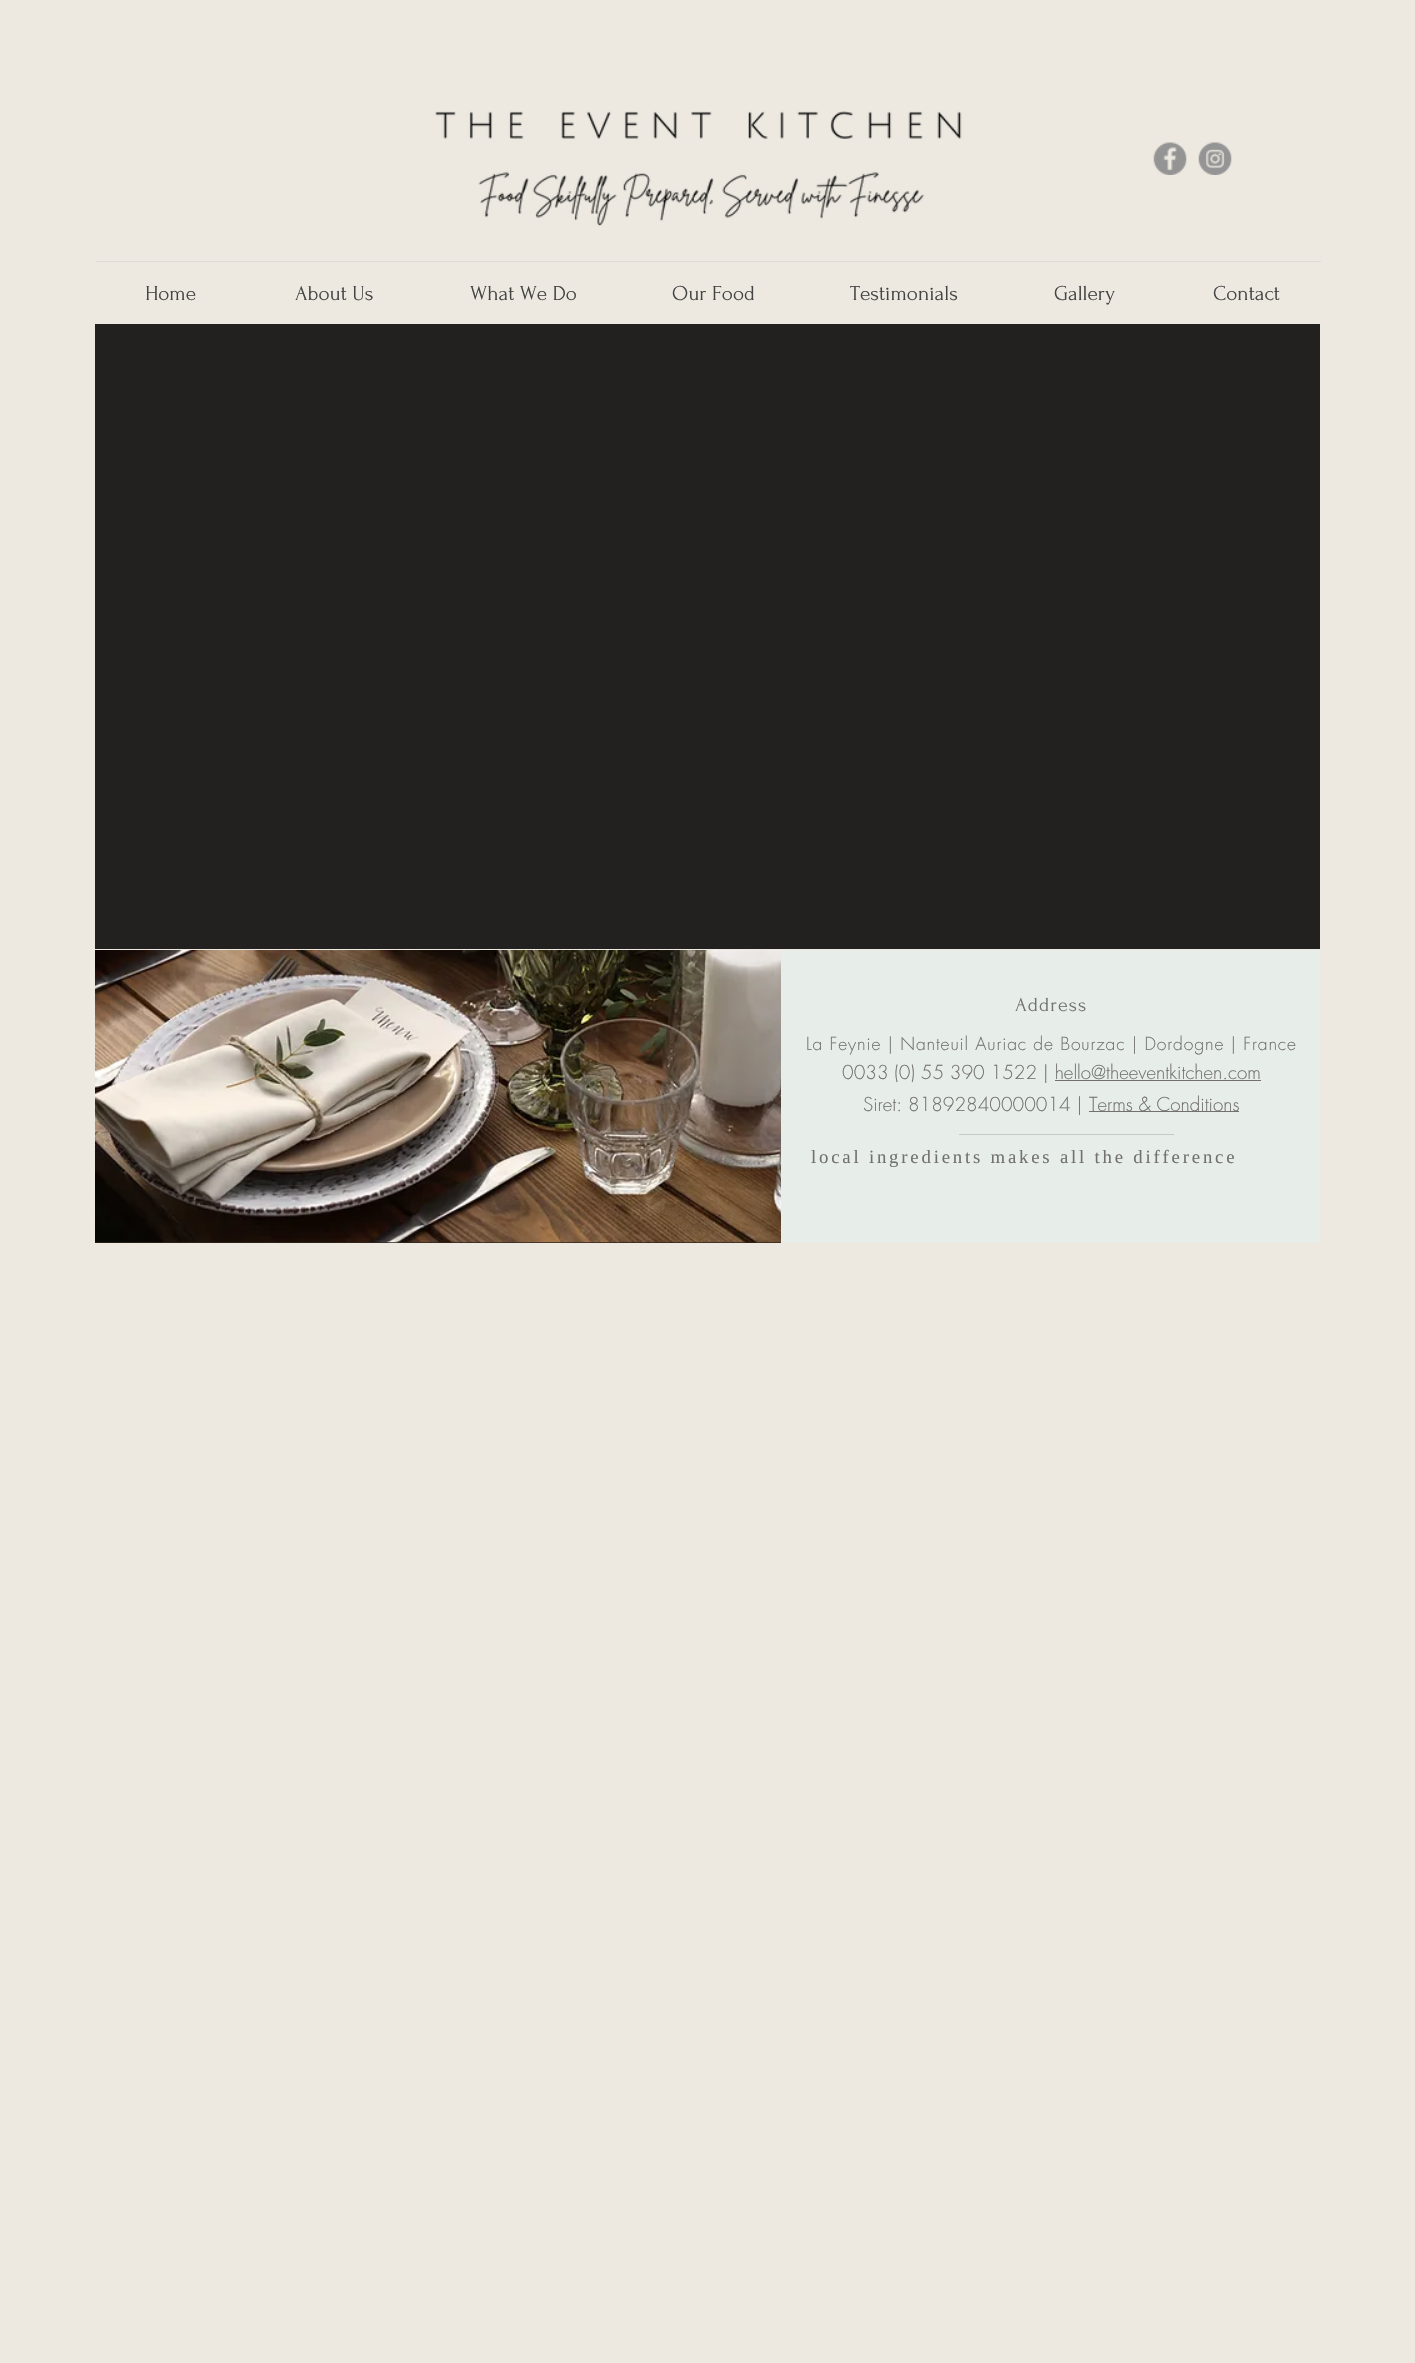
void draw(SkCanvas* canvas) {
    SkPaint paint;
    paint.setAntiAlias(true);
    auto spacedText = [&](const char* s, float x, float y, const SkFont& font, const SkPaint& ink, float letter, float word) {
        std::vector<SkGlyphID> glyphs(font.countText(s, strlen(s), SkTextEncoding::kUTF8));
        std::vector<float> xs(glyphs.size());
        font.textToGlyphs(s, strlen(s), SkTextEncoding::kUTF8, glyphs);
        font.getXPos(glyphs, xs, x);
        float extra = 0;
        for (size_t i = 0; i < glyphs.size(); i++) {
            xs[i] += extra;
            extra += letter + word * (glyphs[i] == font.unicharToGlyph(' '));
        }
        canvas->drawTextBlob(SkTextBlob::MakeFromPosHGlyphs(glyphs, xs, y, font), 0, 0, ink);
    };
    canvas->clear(0xFFEDE9E1);
    canvas->drawImageRect(SkImages::DeferredFromEncodedData(SkData::MakeFromFileName("img1.png")), SkRect::MakeXYWH(435, 111, 527, 115), SkSamplingOptions());
    canvas->drawImageRect(SkImages::DeferredFromEncodedData(SkData::MakeFromFileName("img2.png")), SkRect::MakeXYWH(1153, 142, 34, 33), SkSamplingOptions());
    canvas->drawImageRect(SkImages::DeferredFromEncodedData(SkData::MakeFromFileName("img3.png")), SkRect::MakeXYWH(1198, 142, 34, 33), SkSamplingOptions());
    paint.setColor(0xFFDEDCD7);
    canvas->drawRect(SkRect::MakeXYWH(96, 261, 1225, 1), paint);
    SkFont font1(fontMgr->matchFamilyStyle("Forum", SkFontStyle::Normal()), 21.25f);
    font1.setSubpixel(true);
    paint.setColor(0xFF444444);
    canvas->drawString("Home", 145, 300, font1, paint);
    canvas->drawString("About Us", 295, 300, font1, paint);
    canvas->drawString("What We Do", 470, 300, font1, paint);
    canvas->drawString("Our Food", 672, 300, font1, paint);
    canvas->drawString("Testimonials", 850, 300, font1, paint);
    canvas->drawString("Gallery", 1054, 300, font1, paint);
    canvas->drawString("Contact", 1213, 300, font1, paint);
    paint.setColor(0xFF222120);
    canvas->drawRect(SkRect::MakeXYWH(95, 324, 1225, 625), paint);
    paint.setColor(0xFF2F261E);
    canvas->drawRect(SkRect::MakeXYWH(95, 1242, 686, 1), paint);
    canvas->drawImageRect(SkImages::DeferredFromEncodedData(SkData::MakeFromFileName("img4.png")), SkRect::MakeXYWH(95, 950, 686, 293), SkSamplingOptions());
    paint.setColor(0xFFE7EEEA);
    canvas->drawRect(SkRect::MakeXYWH(781, 950, 539, 293), paint);
    SkFont font2(fontMgr->matchFamilyStyle("Forum", SkFontStyle::Normal()), 20);
    font2.setSubpixel(true);
    paint.setColor(0xFF72716F);
    spacedText("Address", 1015, 1011, font2, paint, 1, 0);
    SkFont font3(fontMgr->matchFamilyStyle("futura", SkFontStyle(300, SkFontStyle::kNormal_Width, SkFontStyle::kUpright_Slant)), 17.5f);
    font3.setSubpixel(true);
    spacedText("La Feynie | Nanteuil Auriac de Bourzac | Dordogne | France", 806, 1050, font3, paint, 0.88f, 0);
    SkFont font4(fontMgr->matchFamilyStyle("futura", SkFontStyle(300, SkFontStyle::kNormal_Width, SkFontStyle::kUpright_Slant)), 18.75f);
    font4.setSubpixel(true);
    canvas->drawString("0033 (0) 55 390 1522 | hello@theeventkitchen.com", 842, 1079, font4, paint);
    canvas->drawRect(SkRect::MakeXYWH(1055, 1080, 206, 1), paint);
    canvas->drawString("Siret: 81892840000014 |", 863, 1111, font4, paint);
    canvas->drawRect(SkRect::MakeXYWH(1089, 1111, 150, 1), paint);
    canvas->drawString("Terms & Conditions", 1089, 1111, font4, paint);
    paint.setColor(0xFFC7CAC7);
    canvas->drawRect(SkRect::MakeXYWH(959, 1134, 215, 1), paint);
    SkFont font5(fontMgr->matchFamilyStyle("Liberation Serif", SkFontStyle::Normal()), 18.75f);
    font5.setSubpixel(true);
    paint.setColor(0xFF72716F);
    spacedText("local ingredients makes all the difference", 811, 1163, font5, paint, 2.8f, 0);
}
